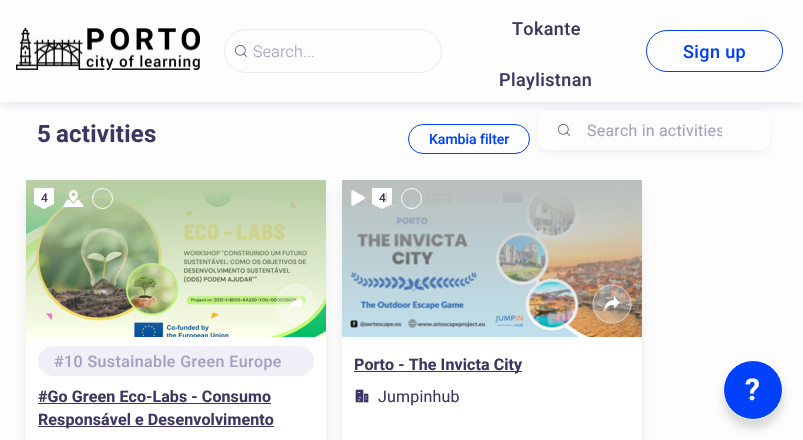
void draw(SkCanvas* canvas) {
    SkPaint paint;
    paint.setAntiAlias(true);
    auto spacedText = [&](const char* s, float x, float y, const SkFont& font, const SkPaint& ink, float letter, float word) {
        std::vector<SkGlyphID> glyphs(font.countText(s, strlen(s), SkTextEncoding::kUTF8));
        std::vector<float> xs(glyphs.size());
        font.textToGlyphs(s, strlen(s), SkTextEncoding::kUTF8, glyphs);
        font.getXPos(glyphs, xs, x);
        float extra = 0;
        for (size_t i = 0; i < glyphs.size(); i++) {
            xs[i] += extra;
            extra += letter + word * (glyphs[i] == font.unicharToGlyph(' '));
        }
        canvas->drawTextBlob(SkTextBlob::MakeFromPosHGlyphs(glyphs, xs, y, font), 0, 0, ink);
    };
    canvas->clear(0xFFFDFDFD);
    canvas->save();
    canvas->clipRect(SkRect::MakeXYWH(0, 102, 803, 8));
    paint.setColor(0x1C300672);
    paint.setMaskFilter(SkMaskFilter::MakeBlur(kNormal_SkBlurStyle, 6));
    canvas->drawRect(SkRect::MakeXYWH(0, 3, 803, 102), paint);
    paint.setMaskFilter(nullptr);
    canvas->restore();
    canvas->drawImageRect(SkImages::DeferredFromEncodedData(SkData::MakeFromFileName("img1.png")), SkRect::MakeXYWH(16, 28, 184, 42), SkSamplingOptions());
    paint.setStyle(SkPaint::kStroke_Style);
    paint.setStrokeWidth(1);
    paint.setColor(0xFFEBEAF1);
    canvas->drawRoundRect(SkRect::MakeXYWH(224.5f, 29.5f, 217, 43), 21.5f, 21.5f, paint);
    canvas->drawImageRect(SkImages::DeferredFromEncodedData(SkData::MakeFromFileName("img2.png")), SkRect::MakeXYWH(235, 45, 12, 12), SkSamplingOptions());
    SkFont font1(fontMgr->matchFamilyStyle("Roboto", SkFontStyle(300, SkFontStyle::kNormal_Width, SkFontStyle::kUpright_Slant)), 16);
    font1.setSubpixel(true);
    paint.setStyle(SkPaint::kFill_Style);
    paint.setColor(0xFFA59FC0);
    spacedText("Search...", 253, 57, font1, paint, 0.2f, 0);
    SkFont font2(fontMgr->matchFamilyStyle("Roboto", SkFontStyle(500, SkFontStyle::kNormal_Width, SkFontStyle::kUpright_Slant)), 18);
    font2.setSubpixel(true);
    paint.setColor(0xFF3E3564);
    spacedText("Tokante", 512, 35, font2, paint, 0.4f, 0);
    spacedText("Playlistnan", 499, 86, font2, paint, 0.4f, 0);
    paint.setStyle(SkPaint::kStroke_Style);
    paint.setColor(0xFF0041F9);
    canvas->drawRoundRect(SkRect::MakeXYWH(646.5f, 30.5f, 136, 41), 20.5f, 20.5f, paint);
    paint.setStyle(SkPaint::kFill_Style);
    spacedText("Sign up", 683, 58, font2, paint, 0.4f, 0);
    SkFont font3(fontMgr->matchFamilyStyle("Roboto", SkFontStyle::Bold()), 24);
    font3.setSubpixel(true);
    paint.setColor(0xFF3E3564);
    spacedText("5", 37, 142, font3, paint, 0.4f, 0);
    spacedText("activities", 56, 142, font3, paint, 0.25f, 0);
    paint.setStyle(SkPaint::kStroke_Style);
    paint.setColor(0xFF0041F9);
    canvas->drawRoundRect(SkRect::MakeXYWH(408.5f, 124.5f, 121, 29), 14.5f, 14.5f, paint);
    canvas->save();
    canvas->clipPath(SkPathBuilder(SkPathFillType::kEvenOdd).moveTo(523, 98).lineTo(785, 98).lineTo(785, 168).lineTo(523, 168).close().moveTo(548, 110).lineTo(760, 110).cubicTo(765.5f, 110, 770, 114.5f, 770, 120).lineTo(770, 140).cubicTo(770, 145.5f, 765.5f, 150, 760, 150).lineTo(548, 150).cubicTo(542.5f, 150, 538, 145.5f, 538, 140).lineTo(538, 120).cubicTo(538, 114.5f, 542.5f, 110, 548, 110).close().detach(), true);
    paint.setStyle(SkPaint::kFill_Style);
    paint.setColor(0x0F300672);
    paint.setMaskFilter(SkMaskFilter::MakeBlur(kNormal_SkBlurStyle, 4.5f));
    canvas->drawRoundRect(SkRect::MakeXYWH(538, 113, 232, 40), 10, 10, paint);
    paint.setMaskFilter(nullptr);
    canvas->restore();
    canvas->drawImageRect(SkImages::DeferredFromEncodedData(SkData::MakeFromFileName("img2.png")), SkRect::MakeXYWH(558, 124, 12, 12), SkSamplingOptions());
    canvas->save();
    canvas->clipRect(SkRect::MakeXYWH(587, 121, 135, 19));
    SkFont font4(fontMgr->matchFamilyStyle("Roboto", SkFontStyle::Normal()), 16);
    font4.setSubpixel(true);
    paint.setColor(0xFFA59FC0);
    spacedText("Search in activities", 587, 136, font4, paint, 0.2f, 0);
    canvas->restore();
    SkFont font5(fontMgr->matchFamilyStyle("Roboto", SkFontStyle(500, SkFontStyle::kNormal_Width, SkFontStyle::kUpright_Slant)), 14);
    font5.setSubpixel(true);
    paint.setColor(0xFF0041F9);
    canvas->drawString("Kambia filter", 429, 144, font5, paint);
    paint.setColor(0x12000000);
    paint.setMaskFilter(SkMaskFilter::MakeBlur(kNormal_SkBlurStyle, 5));
    canvas->drawRect(SkRect::MakeXYWH(26, 190, 300, 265), paint);
    paint.setMaskFilter(nullptr);
    paint.setColor(0xFFFFFFFF);
    canvas->drawRect(SkRect::MakeXYWH(26, 337, 300, 103), paint);
    canvas->drawImageRect(SkImages::DeferredFromEncodedData(SkData::MakeFromFileName("img3.png")), SkRect::MakeXYWH(26, 180, 300, 157), SkSamplingOptions());
    canvas->drawPath(SkPathBuilder().moveTo(34, 188).lineTo(34, 204).lineTo(44, 209).lineTo(54, 204).lineTo(54, 188).close().detach(), paint);
    SkFont font6(fontMgr->matchFamilyStyle("Roboto", SkFontStyle(500, SkFontStyle::kNormal_Width, SkFontStyle::kUpright_Slant)), 12);
    font6.setSubpixel(true);
    paint.setColor(0xFF3E3564);
    spacedText("4", 41, 202, font6, paint, 0.4f, 0);
    canvas->drawImageRect(SkImages::DeferredFromEncodedData(SkData::MakeFromFileName("img4.png")), SkRect::MakeXYWH(63, 190, 21, 17), SkSamplingOptions());
    paint.setStyle(SkPaint::kStroke_Style);
    paint.setColor(0xFFFFFFFF);
    canvas->drawCircle(102.5f, 198.5f, 10, paint);
    canvas->drawImageRect(SkImages::DeferredFromEncodedData(SkData::MakeFromFileName("img5.png")), SkRect::MakeXYWH(276, 284, 40, 40), SkSamplingOptions());
    paint.setStyle(SkPaint::kFill_Style);
    paint.setColor(0xFFF0EFF8);
    canvas->drawRoundRect(SkRect::MakeXYWH(38, 346, 276, 30), 15, 15, paint);
    SkFont font7(fontMgr->matchFamilyStyle("Roboto", SkFontStyle(500, SkFontStyle::kNormal_Width, SkFontStyle::kUpright_Slant)), 16);
    font7.setSubpixel(true);
    paint.setColor(0xFFA59FC0);
    spacedText("#10 Sustainable Green Europe", 54, 367, font7, paint, 0.4f, 0);
    SkFont font8(fontMgr->matchFamilyStyle("Roboto", SkFontStyle::Bold()), 16);
    font8.setSubpixel(true);
    paint.setColor(0xFF3E3564);
    spacedText("#Go Green Eco-Labs - Consumo", 38, 402, font8, paint, 0.1f, 0);
    canvas->drawRect(SkRect::MakeXYWH(38, 403, 233, 1), paint);
    canvas->drawRect(SkRect::MakeXYWH(38, 426, 236, 1), paint);
    spacedText("Responsável e Desenvolvimento", 38, 425, font8, paint, 0.1f, 0);
    paint.setColor(0x12000000);
    paint.setMaskFilter(SkMaskFilter::MakeBlur(kNormal_SkBlurStyle, 5));
    canvas->drawRect(SkRect::MakeXYWH(342, 190, 300, 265), paint);
    paint.setMaskFilter(nullptr);
    paint.setColor(0xFFFFFFFF);
    canvas->drawRect(SkRect::MakeXYWH(342, 337, 300, 103), paint);
    canvas->drawImageRect(SkImages::DeferredFromEncodedData(SkData::MakeFromFileName("img6.png")), SkRect::MakeXYWH(342, 180, 300, 157), SkSamplingOptions());
    canvas->drawPath(SkPathBuilder().moveTo(372, 188).lineTo(372, 204).lineTo(382, 209).lineTo(392, 204).lineTo(392, 188).close().detach(), paint);
    paint.setColor(0xFF3E3564);
    spacedText("4", 379, 202, font6, paint, 0.4f, 0);
    paint.setStyle(SkPaint::kStroke_Style);
    paint.setColor(0xFFFFFFFF);
    canvas->drawCircle(411.5f, 198.5f, 10, paint);
    canvas->drawImageRect(SkImages::DeferredFromEncodedData(SkData::MakeFromFileName("img7.png")), SkRect::MakeXYWH(351, 190, 14, 16), SkSamplingOptions());
    SkFont font9(fontMgr->matchFamilyStyle("Liberation Sans", SkFontStyle::Normal()), 12);
    font9.setSubpixel(true);
    paint.setStyle(SkPaint::kFill_Style);
    paint.setColor(0xFFC6CBCC);
    spacedText("l", 385, 202, font9, paint, 0.4f, 0);
    canvas->drawImageRect(SkImages::DeferredFromEncodedData(SkData::MakeFromFileName("img8.png")), SkRect::MakeXYWH(592, 284, 40, 40), SkSamplingOptions());
    paint.setColor(0xFF3E3564);
    canvas->drawRect(SkRect::MakeXYWH(354, 371, 168, 1), paint);
    spacedText("Porto - The Invicta City", 354, 370, font8, paint, 0.1f, 0);
    canvas->drawImageRect(SkImages::DeferredFromEncodedData(SkData::MakeFromFileName("img9.png")), SkRect::MakeXYWH(355, 389, 14, 14), SkSamplingOptions());
    spacedText("Jumpinhub", 378, 402, font4, paint, 0.2f, 0);
    paint.setColor(0x26000000);
    paint.setMaskFilter(SkMaskFilter::MakeBlur(kNormal_SkBlurStyle, 5));
    canvas->drawRoundRect(SkRect::MakeXYWH(723, 368, 60, 60), 30, 30, paint);
    paint.setMaskFilter(nullptr);
    paint.setColor(0xFF0041F9);
    canvas->drawCircle(753, 390, 29.5f, paint);
    paint.setStyle(SkPaint::kStroke_Style);
    paint.setColor(0xFFFFFFFF);
    canvas->drawCircle(753, 390, 29.5f, paint);
    SkFont font10(fontMgr->matchFamilyStyle("Roboto", SkFontStyle::Bold()), 30);
    font10.setSubpixel(true);
    paint.setStyle(SkPaint::kFill_Style);
    canvas->drawString("?", 745, 400, font10, paint);
}
